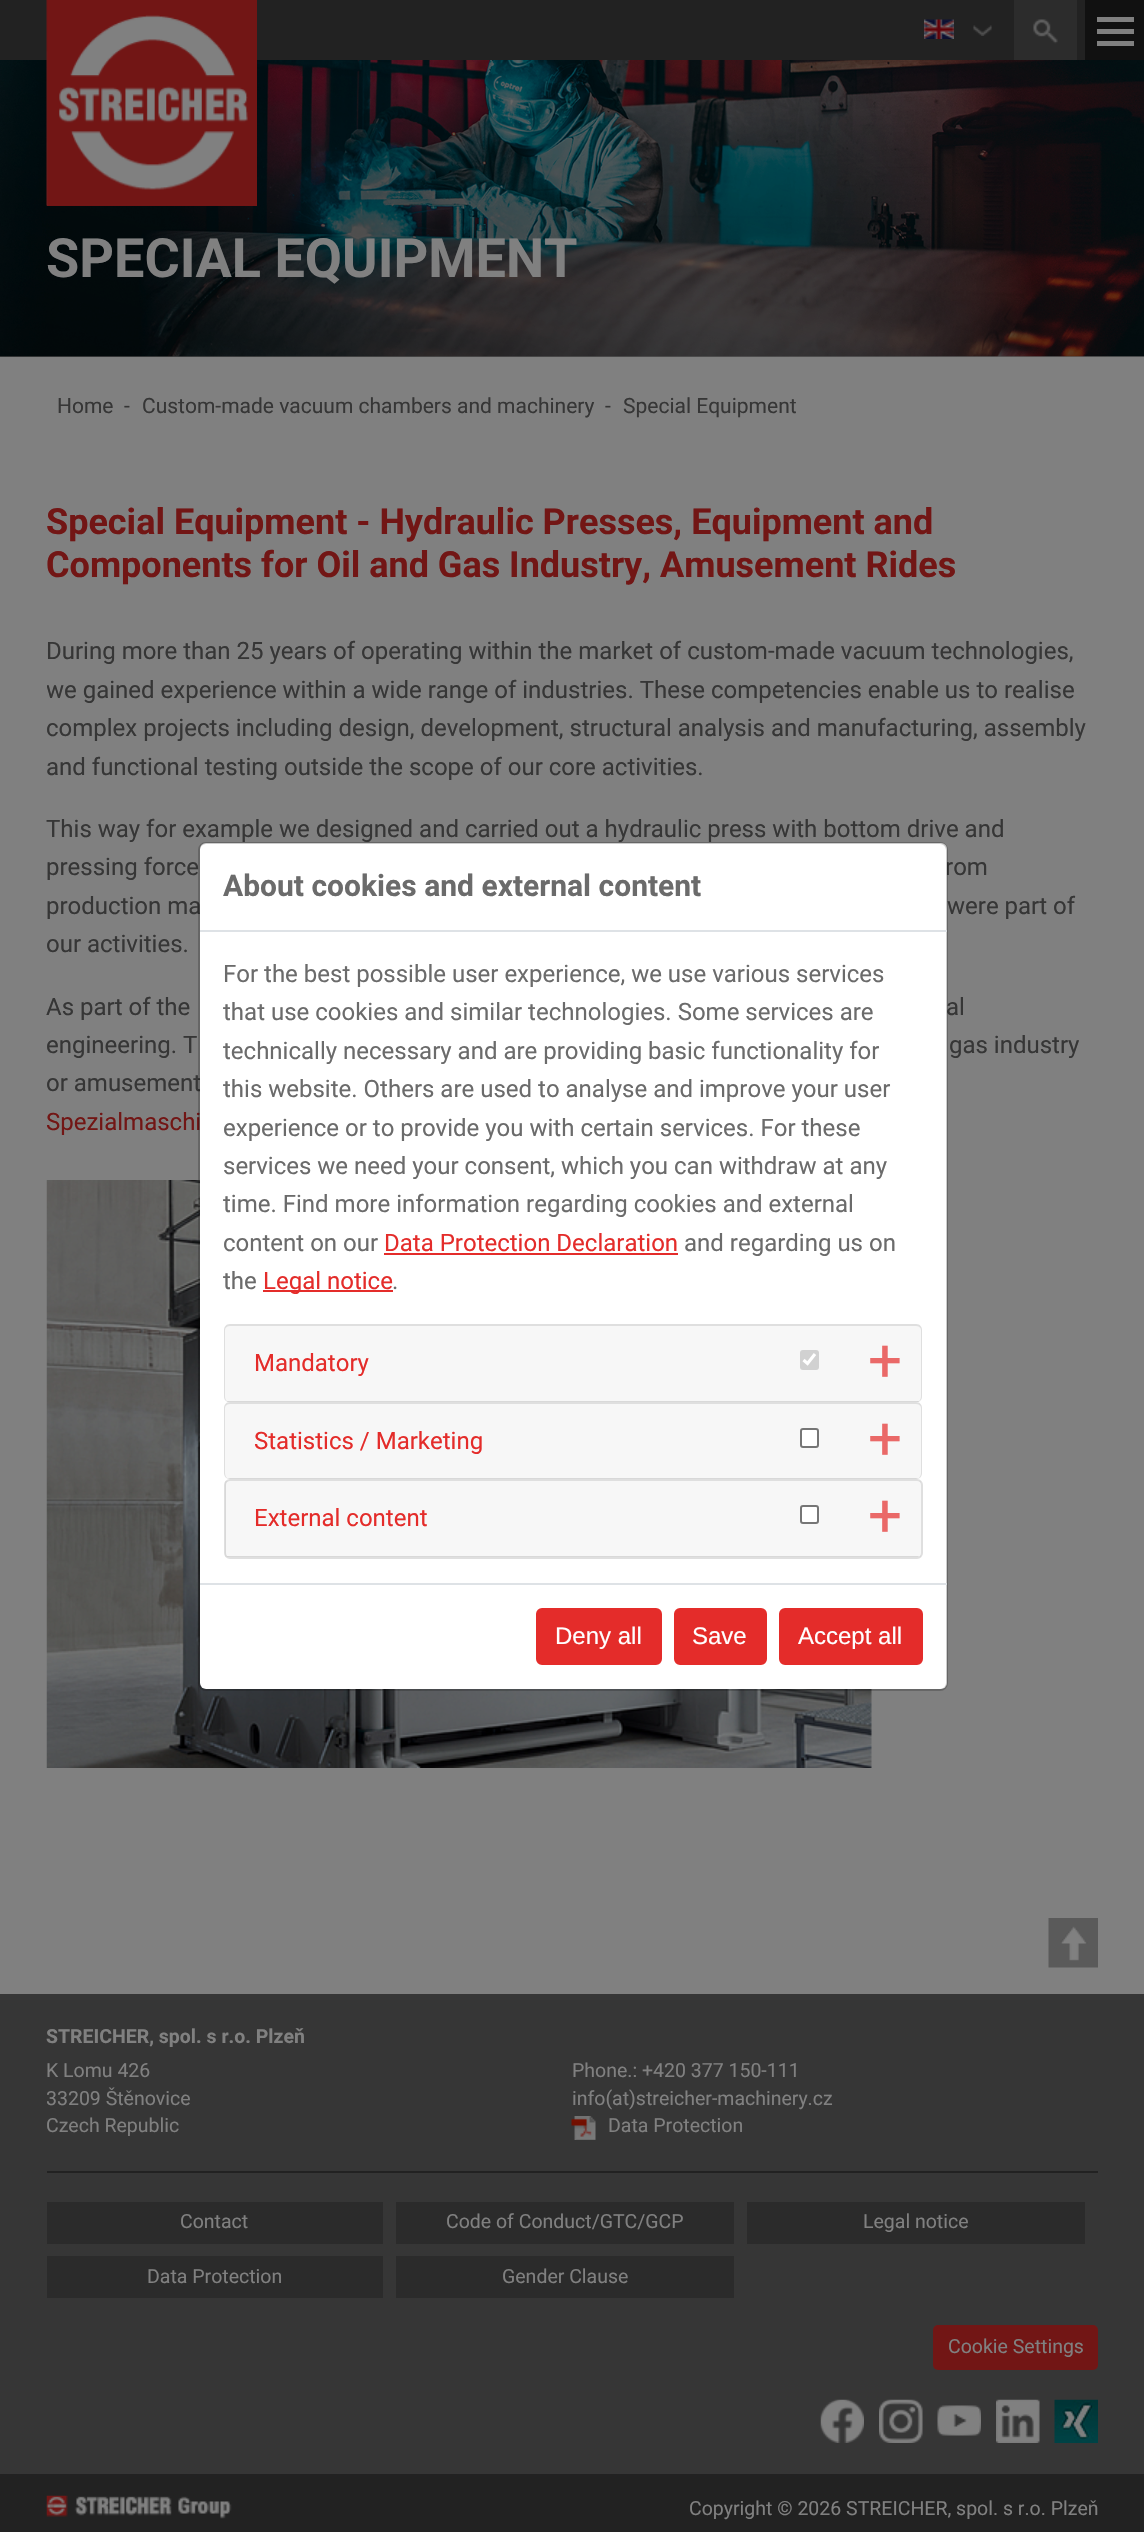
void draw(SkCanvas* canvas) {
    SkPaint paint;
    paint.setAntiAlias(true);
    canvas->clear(0xFF808080);
    paint.setColor(0xFF222222);
    canvas->drawRect(SkRect::MakeXYWH(0, 0, 1085, 60), paint);
    canvas->drawImageRect(SkImages::DeferredFromEncodedData(SkData::MakeFromFileName("img5.png")), SkRect::MakeXYWH(0, 60, 1144, 297), SkSamplingOptions());
    {
        const SkColor colors[] = {0x80000000, 0x00000000};
        const float stops[] = {0, 0.5f};
        const SkPoint ends[] = {{413, 468}, {732, -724}};
        paint.setShader(SkGradientShader::MakeLinear(ends, colors, stops, 2, SkTileMode::kClamp));
        paint.setAlpha(255);
    }
    canvas->drawRect(SkRect::MakeXYWH(0, 60, 1144, 297), paint);
    paint.setShader(nullptr);
    paint.setColor(0xFF721615);
    canvas->drawRect(SkRect::MakeXYWH(47, 0, 210, 206), paint);
    canvas->drawImageRect(SkImages::DeferredFromEncodedData(SkData::MakeFromFileName("img1.png")), SkRect::MakeXYWH(46, 0, 202, 206), SkSamplingOptions());
    canvas->drawImageRect(SkImages::DeferredFromEncodedData(SkData::MakeFromFileName("img2.png")), SkRect::MakeXYWH(924, 19, 30, 20), SkSamplingOptions());
    canvas->drawImageRect(SkImages::DeferredFromEncodedData(SkData::MakeFromFileName("img3.png")), SkRect::MakeXYWH(973, 25, 19, 11), SkSamplingOptions());
    paint.setColor(0xFF2C2C2C);
    canvas->drawRect(SkRect::MakeXYWH(1014, 0, 63, 60), paint);
    canvas->drawImageRect(SkImages::DeferredFromEncodedData(SkData::MakeFromFileName("img4.png")), SkRect::MakeXYWH(1033, 19, 25, 25), SkSamplingOptions());
    paint.setColor(0xFF111111);
    canvas->drawRect(SkRect::MakeXYWH(1085, 0, 59, 60), paint);
    paint.setColor(0xFF808080);
    canvas->drawRect(SkRect::MakeXYWH(1097, 29, 37, 5), paint);
    canvas->drawRect(SkRect::MakeXYWH(1097, 17, 37, 5), paint);
    canvas->drawRect(SkRect::MakeXYWH(1097, 41, 37, 5), paint);
    SkFont font1(fontMgr->matchFamilyStyle("Roboto", SkFontStyle::Bold()), 54);
    font1.setSubpixel(true);
    canvas->drawString("SPECIAL EQUIPMENT", 46, 277, font1, paint);
    SkFont font2(fontMgr->matchFamilyStyle("Roboto", SkFontStyle::Normal()), 21);
    font2.setSubpixel(true);
    paint.setColor(0xFF363636);
    canvas->drawString("Home", 57, 413, font2, paint);
    canvas->drawString("-", 124, 413, font2, paint);
    canvas->drawString("Custom-made vacuum chambers and machinery", 142, 413, font2, paint);
    canvas->drawString("-", 605, 413, font2, paint);
    canvas->drawString("Special Equipment", 623, 413, font2, paint);
    SkFont font3(fontMgr->matchFamilyStyle("Roboto", SkFontStyle::Bold()), 36);
    font3.setSubpixel(true);
    paint.setColor(0xFF721615);
    canvas->drawString("Special Equipment - Hydraulic Presses, Equipment and", 46, 534, font3, paint);
    canvas->drawString("Components for Oil and Gas Industry, Amusement Rides", 46, 577, font3, paint);
    SkFont font4(fontMgr->matchFamilyStyle("Roboto", SkFontStyle::Normal()), 24);
    font4.setSubpixel(true);
    paint.setColor(0xFF363636);
    canvas->drawString("During more than 25 years of operating within the market of custom-made vacuum technologies,", 46, 659, font4, paint);
    canvas->save();
    canvas->clipRect(SkRect::MakeXYWH(47, 633, 1051, 1136));
    canvas->drawString("we gained experience within a wide range of industries. These competencies enable us to realise", 46, 698, font4, paint);
    canvas->drawString("complex projects including design, development, structural analysis and manufacturing, assembly", 46, 736, font4, paint);
    canvas->restore();
    canvas->drawString("and functional testing outside the scope of our core activities.", 46, 775, font4, paint);
    canvas->drawString("This way for example we designed and carried out a hydraulic press with bottom drive and", 46, 837, font4, paint);
    canvas->drawString("pressing force", 46, 875, font4, paint);
    canvas->drawString("rom", 945, 875, font4, paint);
    canvas->drawString("production ma", 46, 914, font4, paint);
    canvas->drawString("were part of", 947, 914, font4, paint);
    canvas->save();
    canvas->clipRect(SkRect::MakeXYWH(47, 633, 1051, 1136));
    canvas->drawString("our activities.", 46, 952, font4, paint);
    canvas->restore();
    canvas->drawString("As part of the", 46, 1015, font4, paint);
    canvas->drawString("al", 946, 1015, font4, paint);
    canvas->drawString("engineering. T", 46, 1053, font4, paint);
    canvas->drawString("gas industry", 949, 1053, font4, paint);
    canvas->save();
    canvas->clipRect(SkRect::MakeXYWH(47, 633, 1051, 1136));
    canvas->drawString("or amusement", 46, 1091, font4, paint);
    canvas->restore();
    paint.setColor(0xFF721615);
    canvas->drawString("Spezialmaschi", 46, 1130, font4, paint);
    canvas->drawImageRect(SkImages::DeferredFromEncodedData(SkData::MakeFromFileName("img6.png")), SkRect::MakeXYWH(46, 1180, 826, 588), SkSamplingOptions());
    paint.setColor(0xFFFFFFFF);
    canvas->drawRoundRect(SkRect::MakeXYWH(200, 843, 747, 846), 6, 6, paint);
    paint.setStyle(SkPaint::kStroke_Style);
    paint.setStrokeWidth(2);
    paint.setColor(0x33000000);
    canvas->drawRoundRect(SkRect::MakeXYWH(199, 843, 748, 847), 7, 7, paint);
    paint.setStyle(SkPaint::kFill_Style);
    paint.setColor(0xFFDEE2E6);
    canvas->drawRect(SkRect::MakeXYWH(200, 930, 747, 2), paint);
    SkFont font5(fontMgr->matchFamilyStyle("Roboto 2", SkFontStyle::Bold()), 30);
    font5.setSubpixel(true);
    paint.setColor(0xFF6B6B6B);
    canvas->drawString("About cookies and external content", 223, 896, font5, paint);
    canvas->drawString("For the best possible user experience, we use various services", 223, 982, font4, paint);
    canvas->drawString("that use cookies and similar technologies. Some services are", 223, 1020, font4, paint);
    canvas->drawString("technically necessary and are providing basic functionality for", 223, 1059, font4, paint);
    canvas->drawString("this website. Others are used to analyse and improve your user", 223, 1097, font4, paint);
    canvas->drawString("experience or to provide you with certain services. For these", 223, 1136, font4, paint);
    canvas->drawString("services we need your consent, which you can withdraw at any", 223, 1174, font4, paint);
    canvas->drawString("time. Find more information regarding cookies and external", 223, 1212, font4, paint);
    canvas->drawString("content on our", 223, 1251, font4, paint);
    paint.setColor(0xFFE42C2A);
    canvas->drawString("Data Protection Declaration", 384, 1251, font4, paint);
    canvas->drawRect(SkRect::MakeXYWH(384, 1253, 294, 2), paint);
    paint.setColor(0xFF6B6B6B);
    canvas->drawString("and regarding us on", 684, 1251, font4, paint);
    canvas->drawString("the", 223, 1289, font4, paint);
    paint.setColor(0xFFE42C2A);
    canvas->drawRect(SkRect::MakeXYWH(263, 1290, 130, 2), paint);
    canvas->drawString("Legal notice", 263, 1289, font4, paint);
    paint.setColor(0xFF6B6B6B);
    canvas->drawString(".", 392, 1289, font4, paint);
    paint.setColor(0xFFDFDFDF);
    canvas->drawPath(SkPathBuilder(SkPathFillType::kEvenOdd).moveTo(230, 1324).lineTo(916, 1324).cubicTo(920, 1324, 922, 1327, 922, 1330).lineTo(922, 1396).cubicTo(922, 1400, 920, 1402, 916, 1402).lineTo(230, 1402).cubicTo(226, 1402, 224, 1400, 224, 1396).lineTo(224, 1330).cubicTo(224, 1327, 226, 1324, 230, 1324).close().moveTo(230, 1326).lineTo(916, 1326).cubicTo(919, 1326, 921, 1328, 921, 1330).lineTo(921, 1396).cubicTo(921, 1400, 919, 1402, 916, 1402).lineTo(230, 1402).cubicTo(227, 1402, 225, 1400, 225, 1396).lineTo(225, 1330).cubicTo(225, 1328, 227, 1326, 230, 1326).close().detach(), paint);
    paint.setColor(0x08000000);
    canvas->drawPath(SkPathBuilder().moveTo(230, 1326).cubicTo(227, 1326, 225, 1328, 225, 1331).lineTo(225, 1396).cubicTo(225, 1400, 227, 1402, 230, 1402).lineTo(916, 1402).cubicTo(919, 1402, 921, 1400, 921, 1396).lineTo(921, 1331).cubicTo(921, 1328, 919, 1326, 916, 1326).close().detach(), paint);
    paint.setColor(0x1F000000);
    canvas->drawPath(SkPathBuilder().moveTo(919, 1401).cubicTo(919, 1402, 918, 1402, 916, 1402).lineTo(230, 1402).cubicTo(228, 1402, 227, 1402, 227, 1401).close().detach(), paint);
    paint.setColor(0xFFE42C2A);
    canvas->drawString("Mandatory", 254, 1371, font4, paint);
    SkFont font6(fontMgr->matchFamilyStyle("Roboto", SkFontStyle::Normal()), 60);
    font6.setSubpixel(true);
    paint.setColor(0xFFEA6968);
    canvas->drawString("+", 868, 1381, font6, paint);
    paint.setColor(0xFFD1D1D1);
    canvas->drawRoundRect(SkRect::MakeXYWH(800, 1350, 19, 20), 3, 3, paint);
    paint.setStyle(SkPaint::kStroke_Style);
    paint.setStrokeWidth(3.1f);
    paint.setColor(0xFFFFFFFF);
    canvas->drawPath(SkPathBuilder().moveTo(803.5f, 1360).lineTo(807.5f, 1363.5f).lineTo(815, 1354).detach(), paint);
    paint.setStyle(SkPaint::kFill_Style);
    paint.setColor(0xFFDFDFDF);
    canvas->drawPath(SkPathBuilder(SkPathFillType::kEvenOdd).moveTo(230, 1402).lineTo(916, 1402).cubicTo(920, 1402, 922, 1405, 922, 1408).lineTo(922, 1473).cubicTo(922, 1476, 920, 1479, 916, 1479).lineTo(230, 1479).cubicTo(226, 1479, 224, 1476, 224, 1473).lineTo(224, 1408).cubicTo(224, 1405, 226, 1402, 230, 1402).close().moveTo(230, 1404).lineTo(916, 1404).cubicTo(919, 1404, 921, 1406, 921, 1408).lineTo(921, 1473).cubicTo(921, 1476, 919, 1479, 916, 1479).lineTo(230, 1479).cubicTo(227, 1479, 225, 1476, 225, 1473).lineTo(225, 1408).cubicTo(225, 1406, 227, 1404, 230, 1404).close().detach(), paint);
    paint.setColor(0x08000000);
    canvas->drawPath(SkPathBuilder().moveTo(230, 1404).cubicTo(227, 1404, 225, 1406, 225, 1409).lineTo(225, 1473).cubicTo(225, 1476, 227, 1479, 230, 1479).lineTo(916, 1479).cubicTo(919, 1479, 921, 1476, 921, 1473).lineTo(921, 1409).cubicTo(921, 1406, 919, 1404, 916, 1404).close().detach(), paint);
    paint.setColor(0xFFD8D8D8);
    canvas->drawPath(SkPathBuilder().moveTo(919, 1478).lineTo(916, 1479).lineTo(230, 1479).lineTo(227, 1478).close().detach(), paint);
    paint.setColor(0xFFE42C2A);
    canvas->drawString("Statistics / Marketing", 254, 1449, font4, paint);
    paint.setColor(0xFFEA6968);
    canvas->drawString("+", 868, 1459, font6, paint);
    paint.setColor(0xFFFFFFFF);
    canvas->drawRoundRect(SkRect::MakeXYWH(801, 1429, 17, 18), 2, 2, paint);
    paint.setStyle(SkPaint::kStroke_Style);
    paint.setStrokeWidth(2);
    paint.setColor(0xFF767676);
    canvas->drawRoundRect(SkRect::MakeXYWH(801, 1429, 17, 18), 2, 2, paint);
    paint.setColor(0xFFDFDFDF);
    canvas->drawRoundRect(SkRect::MakeXYWH(225, 1480, 697, 78), 5, 5, paint);
    paint.setStyle(SkPaint::kFill_Style);
    paint.setColor(0x08000000);
    canvas->drawRect(SkRect::MakeXYWH(225, 1481, 696, 76), paint);
    canvas->save();
    canvas->clipPath(SkPathBuilder().moveTo(230, 1481).lineTo(916, 1481).cubicTo(919, 1481, 921, 1483, 921, 1486).lineTo(921, 1552).cubicTo(921, 1555, 919, 1557, 916, 1557).lineTo(230, 1557).cubicTo(227, 1557, 225, 1555, 225, 1552).lineTo(225, 1486).cubicTo(225, 1483, 227, 1481, 230, 1481).close().detach(), true);
    paint.setColor(0x1F000000);
    canvas->drawRect(SkRect::MakeXYWH(225, 1556, 696, 1), paint);
    canvas->restore();
    paint.setColor(0xFFE42C2A);
    canvas->drawString("External content", 254, 1526, font4, paint);
    paint.setColor(0xFFEA6968);
    canvas->drawString("+", 868, 1536, font6, paint);
    paint.setColor(0xFFFFFFFF);
    canvas->drawRoundRect(SkRect::MakeXYWH(801, 1506, 17, 17), 2, 2, paint);
    paint.setStyle(SkPaint::kStroke_Style);
    paint.setColor(0xFF767676);
    canvas->drawRoundRect(SkRect::MakeXYWH(801, 1506, 17, 17), 2, 2, paint);
    paint.setStyle(SkPaint::kFill_Style);
    paint.setColor(0xFFDEE2E6);
    canvas->drawRect(SkRect::MakeXYWH(200, 1583, 747, 2), paint);
    paint.setColor(0xFFE42C2A);
    canvas->drawRoundRect(SkRect::MakeXYWH(537, 1609, 124, 55), 5, 5, paint);
    paint.setStyle(SkPaint::kStroke_Style);
    canvas->drawRoundRect(SkRect::MakeXYWH(537, 1609, 124, 55), 5, 5, paint);
    SkFont font7(fontMgr->matchFamilyStyle("Liberation Sans", SkFontStyle::Normal()), 24);
    font7.setSubpixel(true);
    paint.setStyle(SkPaint::kFill_Style);
    paint.setColor(0xFFFFFFFF);
    canvas->drawString("Deny all", 555, 1644, font7, paint);
    paint.setColor(0xFFE42C2A);
    canvas->drawRoundRect(SkRect::MakeXYWH(675, 1609, 91, 55), 5, 5, paint);
    paint.setStyle(SkPaint::kStroke_Style);
    canvas->drawRoundRect(SkRect::MakeXYWH(675, 1609, 91, 55), 5, 5, paint);
    paint.setStyle(SkPaint::kFill_Style);
    paint.setColor(0xFFFFFFFF);
    canvas->drawString("Save", 692, 1644, font7, paint);
    paint.setColor(0xFFE42C2A);
    canvas->drawRoundRect(SkRect::MakeXYWH(780, 1609, 142, 55), 5, 5, paint);
    paint.setStyle(SkPaint::kStroke_Style);
    canvas->drawRoundRect(SkRect::MakeXYWH(780, 1609, 142, 55), 5, 5, paint);
    paint.setStyle(SkPaint::kFill_Style);
    paint.setColor(0xFFFFFFFF);
    canvas->drawString("Accept all", 798, 1644, font7, paint);
    paint.setColor(0xFF363636);
    canvas->drawRect(SkRect::MakeXYWH(0, 1994, 1144, 480), paint);
    canvas->drawImageRect(SkImages::DeferredFromEncodedData(SkData::MakeFromFileName("img7.png")), SkRect::MakeXYWH(1048, 1918, 50, 50), SkSamplingOptions());
    SkFont font8(fontMgr->matchFamilyStyle("Roboto 2", SkFontStyle::Bold()), 19.5f);
    font8.setSubpixel(true);
    paint.setColor(0xFF808080);
    canvas->drawString("STREICHER, spol. s r.o. Plzeň", 46, 2043, font8, paint);
    SkFont font9(fontMgr->matchFamilyStyle("Roboto", SkFontStyle::Normal()), 19.5f);
    font9.setSubpixel(true);
    canvas->drawString("K Lomu 426", 46, 2077, font9, paint);
    canvas->save();
    canvas->clipRect(SkRect::MakeXYWH(47, 2058, 1051, 83));
    canvas->drawString("33209 Štěnovice", 46, 2105, font9, paint);
    canvas->restore();
    canvas->drawString("Czech Republic", 46, 2132, font9, paint);
    canvas->drawString("Phone.: +420 377 150-111", 572, 2077, font9, paint);
    canvas->drawString("info(at)streicher-machinery.cz", 572, 2105, font9, paint);
    canvas->drawImageRect(SkImages::DeferredFromEncodedData(SkData::MakeFromFileName("img8.png")), SkRect::MakeXYWH(571, 2116, 25, 24), SkSamplingOptions());
    canvas->drawString("Data Protection", 608, 2132, font9, paint);
    paint.setColor(0xFF222222);
    canvas->drawRect(SkRect::MakeXYWH(47, 2171, 1051, 2), paint);
    paint.setColor(0xFF2B2B2B);
    canvas->drawRect(SkRect::MakeXYWH(47, 2202, 336, 42), paint);
    paint.setColor(0xFF808080);
    canvas->drawString("Contact", 180, 2228, font9, paint);
    paint.setColor(0xFF2B2B2B);
    canvas->drawRect(SkRect::MakeXYWH(396, 2202, 338, 42), paint);
    paint.setColor(0xFF808080);
    canvas->drawString("Code of Conduct/GTC/GCP", 446, 2228, font9, paint);
    paint.setColor(0xFF2B2B2B);
    canvas->drawRect(SkRect::MakeXYWH(747, 2202, 338, 42), paint);
    paint.setColor(0xFF808080);
    canvas->drawString("Legal notice", 863, 2228, font9, paint);
    paint.setColor(0xFF2B2B2B);
    canvas->drawRect(SkRect::MakeXYWH(47, 2256, 336, 42), paint);
    paint.setColor(0xFF808080);
    canvas->drawString("Data Protection", 147, 2283, font9, paint);
    paint.setColor(0xFF2B2B2B);
    canvas->drawRect(SkRect::MakeXYWH(396, 2256, 338, 42), paint);
    paint.setColor(0xFF808080);
    canvas->drawString("Gender Clause", 502, 2283, font9, paint);
    paint.setColor(0xFF721615);
    canvas->drawRoundRect(SkRect::MakeXYWH(933, 2325, 165, 45), 5, 5, paint);
    paint.setColor(0xFF808080);
    canvas->drawString("Cookie Settings", 948, 2353, font9, paint);
    canvas->drawImageRect(SkImages::DeferredFromEncodedData(SkData::MakeFromFileName("img9.png")), SkRect::MakeXYWH(820, 2399, 44, 44), SkSamplingOptions());
    canvas->drawImageRect(SkImages::DeferredFromEncodedData(SkData::MakeFromFileName("img10.png")), SkRect::MakeXYWH(879, 2399, 44, 44), SkSamplingOptions());
    canvas->drawImageRect(SkImages::DeferredFromEncodedData(SkData::MakeFromFileName("img11.png")), SkRect::MakeXYWH(937, 2405, 44, 31), SkSamplingOptions());
    canvas->drawImageRect(SkImages::DeferredFromEncodedData(SkData::MakeFromFileName("img12.png")), SkRect::MakeXYWH(996, 2399, 44, 44), SkSamplingOptions());
    canvas->drawImageRect(SkImages::DeferredFromEncodedData(SkData::MakeFromFileName("img13.png")), SkRect::MakeXYWH(1054, 2399, 44, 44), SkSamplingOptions());
    paint.setColor(0xFF222222);
    canvas->drawRect(SkRect::MakeXYWH(0, 2474, 1144, 58), paint);
    canvas->drawImageRect(SkImages::DeferredFromEncodedData(SkData::MakeFromFileName("img14.png")), SkRect::MakeXYWH(46, 2495, 186, 24), SkSamplingOptions());
    paint.setColor(0xFF808080);
    canvas->drawString("Copyright © 2026 STREICHER, spol. s r.o. Plzeň", 689, 2515, font9, paint);
}
